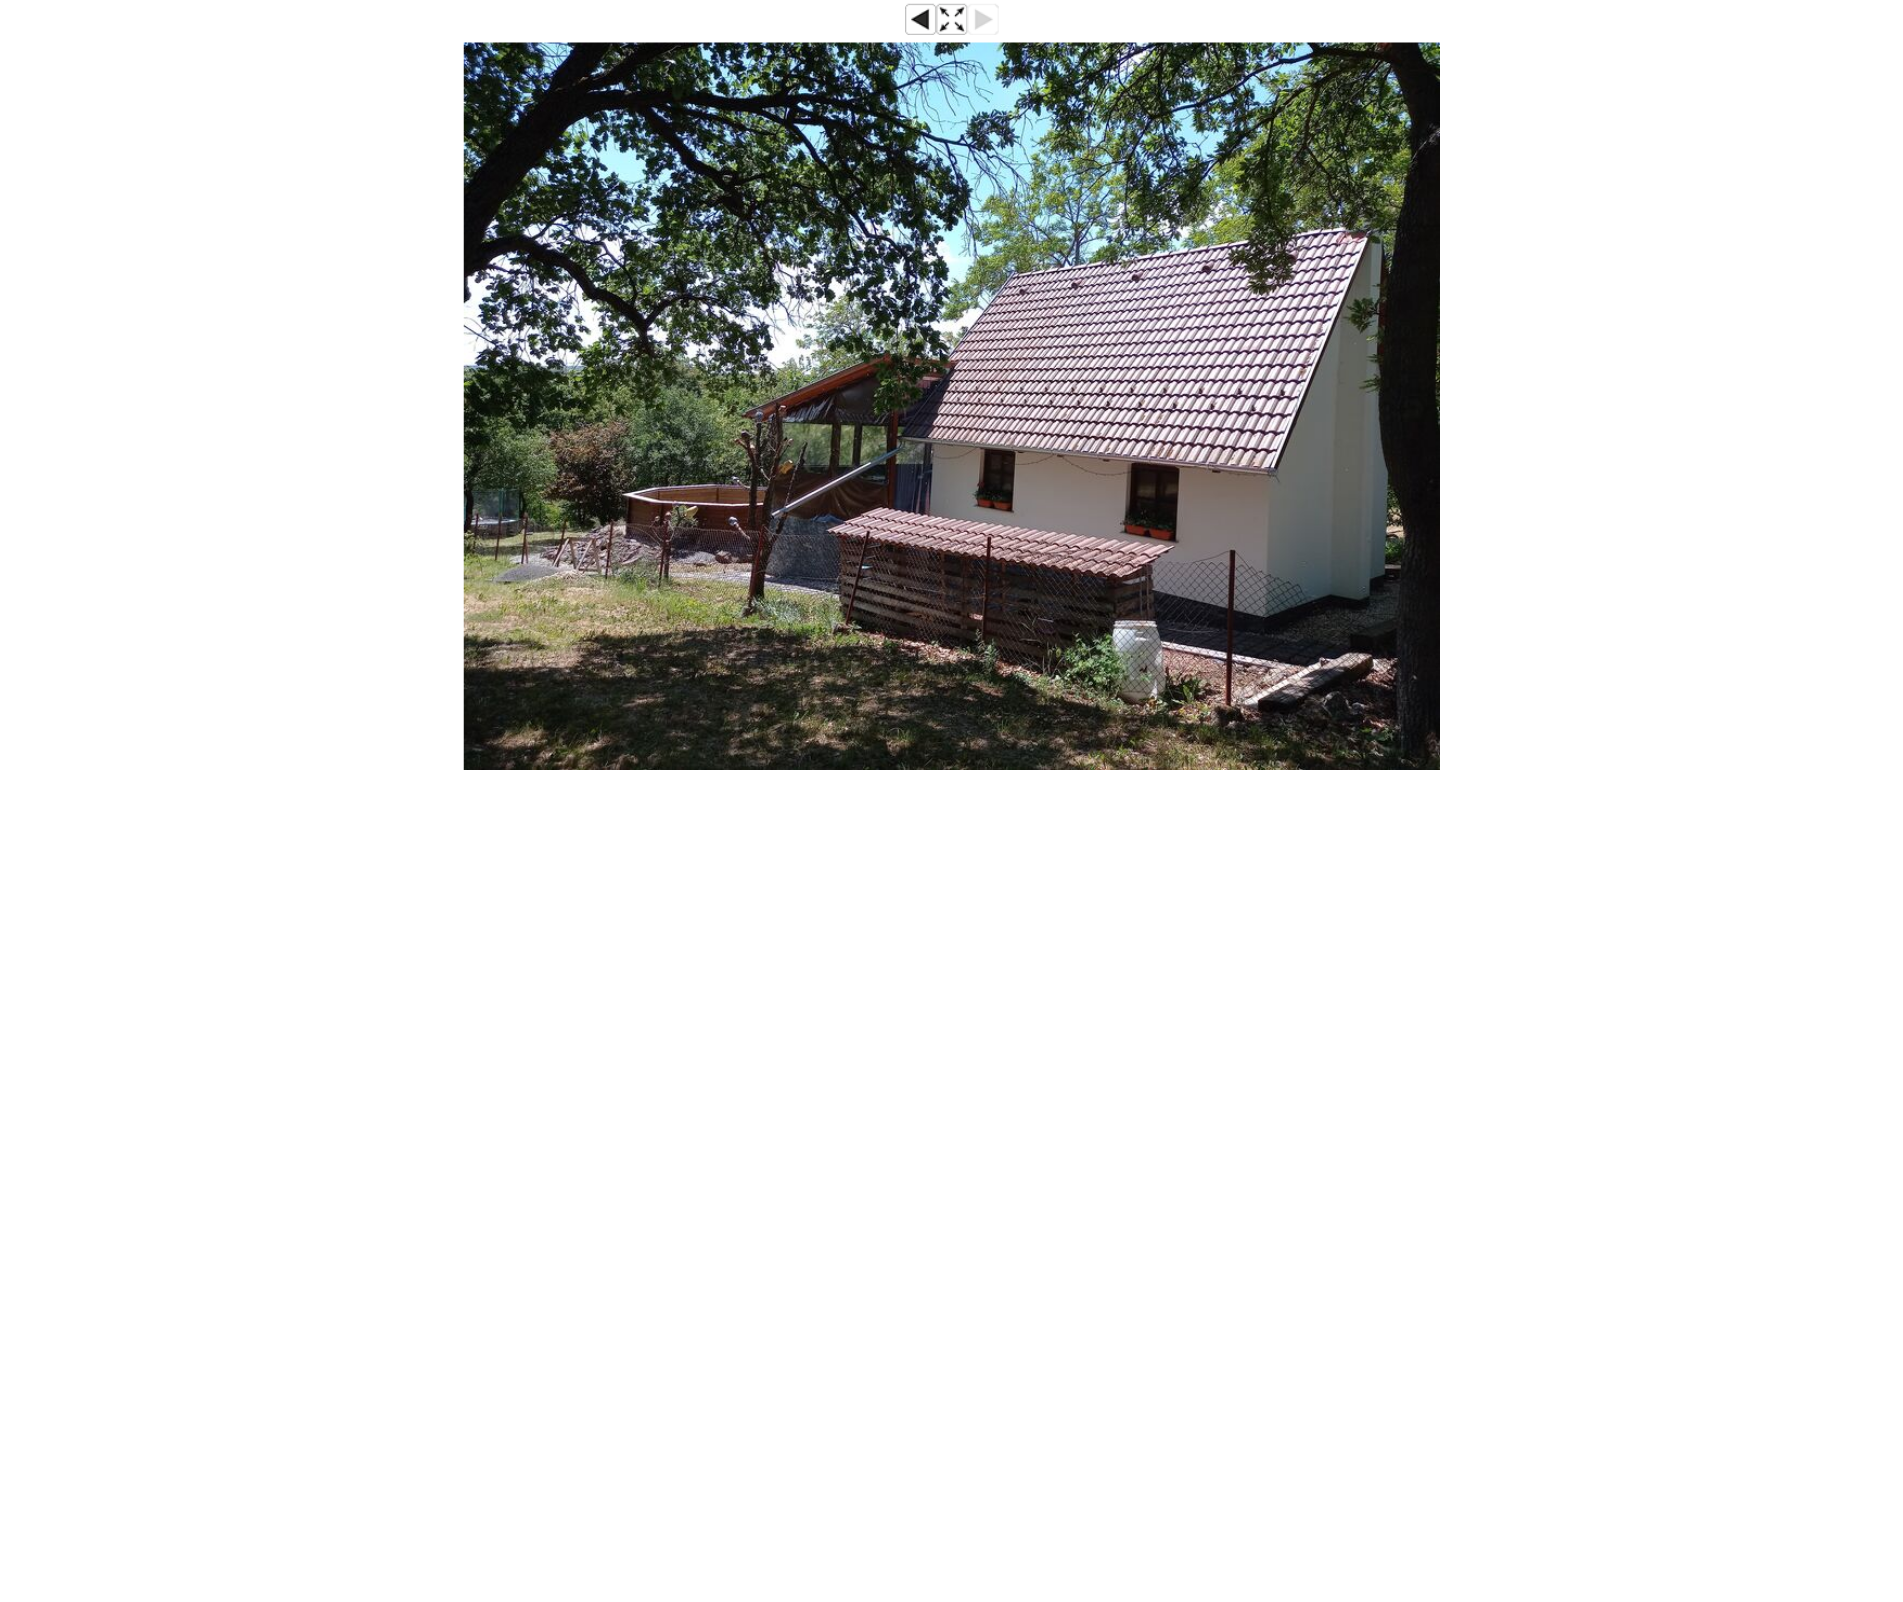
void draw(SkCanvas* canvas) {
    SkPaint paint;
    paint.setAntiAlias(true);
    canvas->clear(0xFFFFFFFF);
    canvas->drawImageRect(SkImages::DeferredFromEncodedData(SkData::MakeFromFileName("img1.png")), SkRect::MakeXYWH(905, 3, 32, 32), SkSamplingOptions());
    canvas->drawImageRect(SkImages::DeferredFromEncodedData(SkData::MakeFromFileName("img2.png")), SkRect::MakeXYWH(936, 3, 32, 32), SkSamplingOptions());
    canvas->drawImageRect(SkImages::DeferredFromEncodedData(SkData::MakeFromFileName("img3.png")), SkRect::MakeXYWH(967, 3, 32, 32), SkSamplingOptions());
    canvas->drawImageRect(SkImages::DeferredFromEncodedData(SkData::MakeFromFileName("img4.png")), SkRect::MakeXYWH(463, 42, 977, 728), SkSamplingOptions());
}
